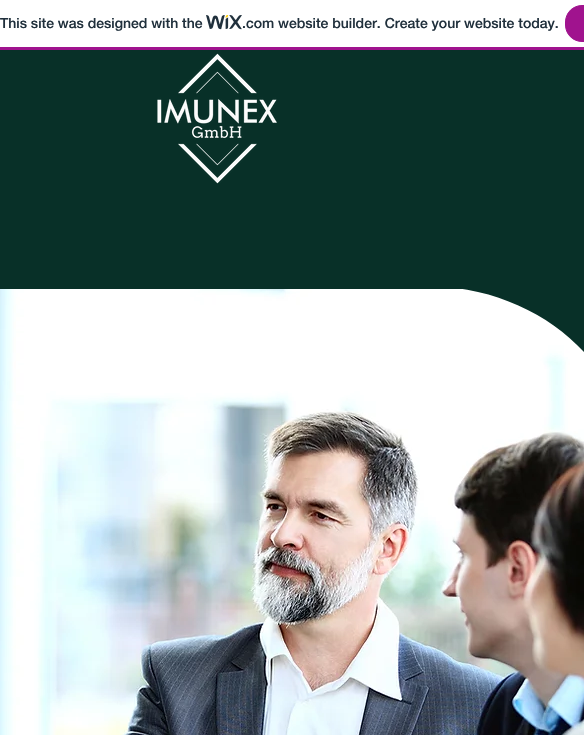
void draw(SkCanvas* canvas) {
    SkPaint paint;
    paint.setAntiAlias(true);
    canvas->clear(0xFFFFFFFF);
    paint.setColor(0xFFA0138E);
    canvas->drawRect(SkRect::MakeXYWH(0, 47, 584, 3), paint);
    SkFont font1(fontMgr->matchFamilyStyle("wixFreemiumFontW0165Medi", SkFontStyle(500, SkFontStyle::kNormal_Width, SkFontStyle::kUpright_Slant)), 14);
    font1.setSubpixel(true);
    paint.setColor(0xFF20303C);
    canvas->drawString("This site was designed with the", 0, 28, font1, paint);
    canvas->drawImageRect(SkImages::DeferredFromEncodedData(SkData::MakeFromFileName("img1.png")), SkRect::MakeXYWH(206, 15, 36, 15), SkSamplingOptions());
    canvas->drawString(".com website builder. Create your website today.", 242, 28, font1, paint);
    paint.setColor(0xFFA0138E);
    canvas->drawRoundRect(SkRect::MakeXYWH(565.5f, 5.5f, 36, 36), 16.5f, 16.5f, paint);
    paint.setStyle(SkPaint::kStroke_Style);
    paint.setStrokeWidth(1);
    canvas->drawRoundRect(SkRect::MakeXYWH(565.5f, 5.5f, 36, 36), 16.5f, 16.5f, paint);
    paint.setStyle(SkPaint::kFill_Style);
    paint.setColor(0xFF083028);
    canvas->drawRect(SkRect::MakeXYWH(0, 50, 584, 239), paint);
    canvas->drawImageRect(SkImages::DeferredFromEncodedData(SkData::MakeFromFileName("img2.png")), SkRect::MakeXYWH(157, 53, 120, 131), SkSamplingOptions());
    canvas->drawImageRect(SkImages::DeferredFromEncodedData(SkData::MakeFromFileName("img3.png")), SkRect::MakeXYWH(0, 289, 584, 446), SkSamplingOptions());
    canvas->drawPath(SkPathBuilder().moveTo(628, 454).lineTo(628, 286).lineTo(434, 286).cubicTo(539, 290, 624, 363, 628, 454).close().detach(), paint);
}
